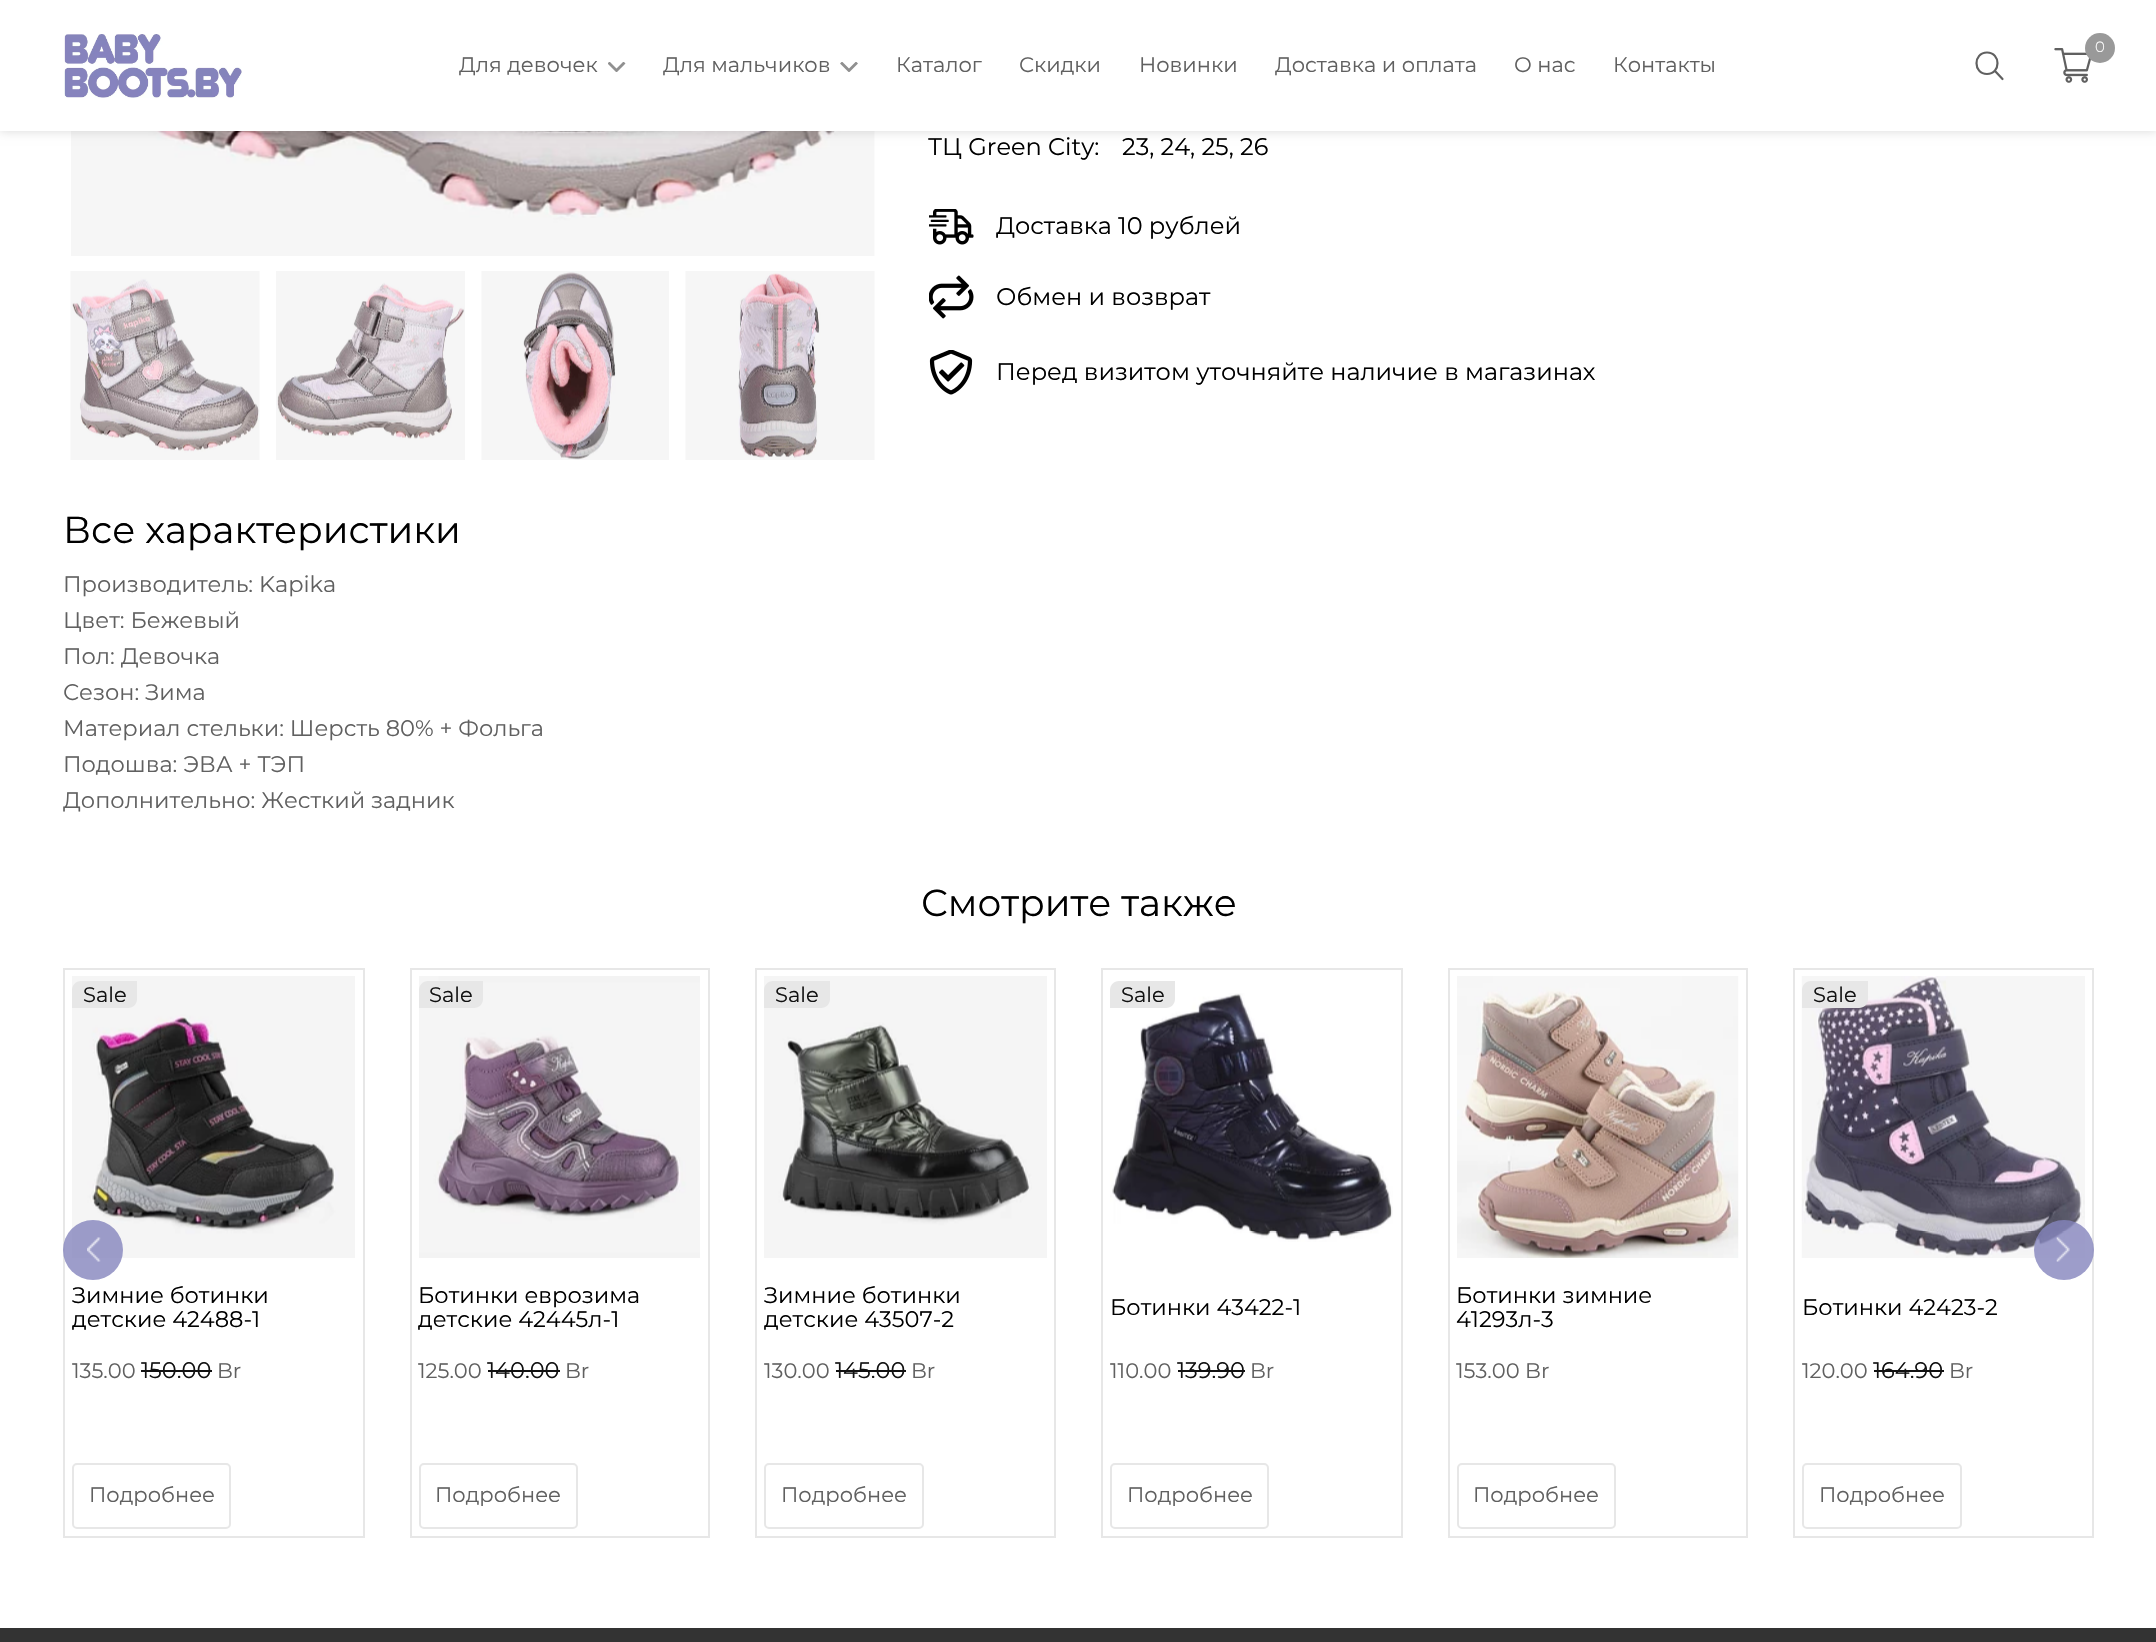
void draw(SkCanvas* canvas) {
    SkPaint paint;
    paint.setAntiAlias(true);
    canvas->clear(0xFFFFFFFF);
    canvas->drawImageRect(SkImages::DeferredFromEncodedData(SkData::MakeFromFileName("img3.png")), SkRect::MakeXYWH(71, 131, 804, 125), SkSamplingOptions());
    paint.setColor(0x26000000);
    paint.setMaskFilter(SkMaskFilter::MakeBlur(kNormal_SkBlurStyle, 5));
    canvas->drawRect(SkRect::MakeXYWH(0, 0, 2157, 131), paint);
    paint.setMaskFilter(nullptr);
    paint.setColor(0xFFFFFFFF);
    canvas->drawRect(SkRect::MakeXYWH(0, 0, 2156, 131), paint);
    canvas->drawImageRect(SkImages::DeferredFromEncodedData(SkData::MakeFromFileName("img1.png")), SkRect::MakeXYWH(64, 34, 178, 64), SkSamplingOptions());
    canvas->drawImageRect(SkImages::DeferredFromEncodedData(SkData::MakeFromFileName("img2.png")), SkRect::MakeXYWH(2054, 48, 37, 35), SkSamplingOptions());
    paint.setColor(0xFF999999);
    canvas->drawCircle(2100, 48, 15, paint);
    SkFont font1(fontMgr->matchFamilyStyle("Montserrat", SkFontStyle(300, SkFontStyle::kNormal_Width, SkFontStyle::kUpright_Slant)), 15);
    font1.setSubpixel(true);
    paint.setColor(0xFFFFFFFF);
    canvas->drawString("0", 2095, 52, font1, paint);
    paint.setStyle(SkPaint::kStroke_Style);
    paint.setStrokeWidth(2.2f);
    paint.setColor(0xFF606060);
    canvas->drawPath(SkPathBuilder().moveTo(1987, 52.5f).cubicTo(1973, 52.5f, 1973, 74, 1987, 74).cubicTo(2001, 74, 2001, 52.5f, 1987, 52.5f).close().detach(), paint);
    paint.setStrokeCap(SkPaint::kRound_Cap);
    canvas->drawPath(SkPathBuilder().moveTo(1995, 71).lineTo(2002.5f, 79).detach(), paint);
    SkFont font2(fontMgr->matchFamilyStyle("Montserrat", SkFontStyle::Normal()), 21);
    font2.setSubpixel(true);
    paint.setStyle(SkPaint::kFill_Style);
    canvas->drawString("Для девочек", 459, 72, font2, paint);
    canvas->save();
    canvas->clipRect(SkRect::MakeXYWH(608, 62, 18, 10));
    paint.setColor(0xFF909090);
    canvas->drawPath(SkPathBuilder().moveTo(623.5f, 61.5f).lineTo(616.5f, 68.5f).lineTo(609.5f, 61.5f).lineTo(607.5f, 63.5f).lineTo(616.5f, 72.5f).lineTo(625.5f, 63.5f).close().detach(), paint);
    canvas->restore();
    paint.setColor(0xFF606060);
    canvas->drawString("Для мальчиков", 663, 72, font2, paint);
    canvas->save();
    canvas->clipRect(SkRect::MakeXYWH(840, 62, 18, 10));
    paint.setColor(0xFF909090);
    canvas->drawPath(SkPathBuilder().moveTo(856, 61.5f).lineTo(849, 68.5f).lineTo(842, 61.5f).lineTo(840, 63.5f).lineTo(849, 72.5f).lineTo(858, 63.5f).close().detach(), paint);
    canvas->restore();
    paint.setColor(0xFF606060);
    canvas->drawString("Каталог", 896, 72, font2, paint);
    canvas->drawString("Скидки", 1019, 72, font2, paint);
    canvas->drawString("Новинки", 1139, 72, font2, paint);
    canvas->drawString("Доставка и оплата", 1275, 72, font2, paint);
    canvas->drawString("О нас", 1514, 72, font2, paint);
    canvas->drawString("Контакты", 1613, 72, font2, paint);
    canvas->drawImageRect(SkImages::DeferredFromEncodedData(SkData::MakeFromFileName("img4.png")), SkRect::MakeXYWH(70, 271, 190, 189), SkSamplingOptions());
    canvas->drawImageRect(SkImages::DeferredFromEncodedData(SkData::MakeFromFileName("img5.png")), SkRect::MakeXYWH(276, 271, 189, 189), SkSamplingOptions());
    canvas->drawImageRect(SkImages::DeferredFromEncodedData(SkData::MakeFromFileName("img6.png")), SkRect::MakeXYWH(481, 271, 188, 189), SkSamplingOptions());
    canvas->drawImageRect(SkImages::DeferredFromEncodedData(SkData::MakeFromFileName("img7.png")), SkRect::MakeXYWH(685, 271, 190, 189), SkSamplingOptions());
    SkFont font3(fontMgr->matchFamilyStyle("Montserrat", SkFontStyle::Normal()), 24);
    font3.setSubpixel(true);
    paint.setColor(0xFF000000);
    canvas->drawString("ТЦ Green City:", 928, 155, font3, paint);
    canvas->drawString("23, 24, 25, 26", 1122, 155, font3, paint);
    canvas->drawImageRect(SkImages::DeferredFromEncodedData(SkData::MakeFromFileName("img8.png")), SkRect::MakeXYWH(929, 209, 45, 36), SkSamplingOptions());
    canvas->drawString("Доставка 10 рублей", 996, 234, font3, paint);
    canvas->drawImageRect(SkImages::DeferredFromEncodedData(SkData::MakeFromFileName("img9.png")), SkRect::MakeXYWH(929, 275, 45, 44), SkSamplingOptions());
    canvas->drawString("Обмен и возврат", 996, 305, font3, paint);
    canvas->drawImageRect(SkImages::DeferredFromEncodedData(SkData::MakeFromFileName("img10.png")), SkRect::MakeXYWH(929, 350, 44, 45), SkSamplingOptions());
    canvas->drawString("Перед визитом уточняйте наличие в магазинах", 996, 380, font3, paint);
    SkFont font4(fontMgr->matchFamilyStyle("Montserrat", SkFontStyle::Normal()), 37.5f);
    font4.setSubpixel(true);
    canvas->drawString("Все характеристики", 63, 543, font4, paint);
    SkFont font5(fontMgr->matchFamilyStyle("Montserrat", SkFontStyle::Normal()), 22.5f);
    font5.setSubpixel(true);
    paint.setColor(0xFF606060);
    canvas->drawString("Производитель: Kapika", 63, 592, font5, paint);
    canvas->drawString("Цвет: Бежевый", 63, 628, font5, paint);
    canvas->drawString("Пол: Девочка", 63, 664, font5, paint);
    canvas->drawString("Сезон: Зима", 63, 700, font5, paint);
    canvas->drawString("Материал стельки: Шерсть 80% + Фольга", 63, 736, font5, paint);
    canvas->drawString("Подошва: ЭВА + ТЭП", 63, 772, font5, paint);
    canvas->drawString("Дополнительно: Жесткий задник", 63, 808, font5, paint);
    paint.setColor(0xFF000000);
    canvas->drawString("Смотрите также", 921, 916, font4, paint);
    paint.setStyle(SkPaint::kStroke_Style);
    paint.setStrokeWidth(2);
    paint.setStrokeCap(SkPaint::kButt_Cap);
    paint.setColor(0xFFE7E7E7);
    canvas->drawRect(SkRect::MakeXYWH(64, 969, 300, 568), paint);
    canvas->drawImageRect(SkImages::DeferredFromEncodedData(SkData::MakeFromFileName("img11.png")), SkRect::MakeXYWH(72, 976, 283, 282), SkSamplingOptions());
    paint.setStyle(SkPaint::kFill_Style);
    canvas->drawPath(SkPathBuilder().moveTo(81, 981).lineTo(137, 981).lineTo(137, 999).cubicTo(137, 1004, 133, 1008, 128, 1008).lineTo(72, 1008).lineTo(72, 990).cubicTo(72, 985, 76, 981, 81, 981).close().detach(), paint);
    paint.setColor(0xFF111111);
    canvas->drawString("Sale", 83, 1002, font2, paint);
    paint.setColor(0xFF000000);
    canvas->drawString("Зимние ботинки", 72, 1303, font5, paint);
    canvas->drawString("детские 42488-1", 72, 1327, font5, paint);
    paint.setColor(0xFF606060);
    canvas->drawString("135.00", 72, 1378, font2, paint);
    paint.setColor(0xFF111111);
    canvas->drawString("150.00", 141, 1378, font5, paint);
    canvas->drawRect(SkRect::MakeXYWH(141, 1370, 71, 2), paint);
    paint.setColor(0xFF606060);
    canvas->drawString("Br", 217, 1378, font2, paint);
    paint.setStyle(SkPaint::kStroke_Style);
    paint.setColor(0xFFE7E7E7);
    canvas->drawRoundRect(SkRect::MakeXYWH(73, 1464, 157, 64), 4, 4, paint);
    paint.setStyle(SkPaint::kFill_Style);
    paint.setColor(0xFF606060);
    canvas->drawString("Подробнее", 89, 1502, font2, paint);
    paint.setStyle(SkPaint::kStroke_Style);
    paint.setColor(0xFFE7E7E7);
    canvas->drawRect(SkRect::MakeXYWH(411, 969, 298, 568), paint);
    canvas->drawImageRect(SkImages::DeferredFromEncodedData(SkData::MakeFromFileName("img12.png")), SkRect::MakeXYWH(419, 976, 281, 282), SkSamplingOptions());
    paint.setStyle(SkPaint::kFill_Style);
    canvas->drawPath(SkPathBuilder().moveTo(428, 981).lineTo(483, 981).lineTo(483, 999).cubicTo(483, 1004, 479, 1008, 474, 1008).lineTo(419, 1008).lineTo(419, 990).cubicTo(419, 985, 423, 981, 428, 981).close().detach(), paint);
    paint.setColor(0xFF111111);
    canvas->drawString("Sale", 429, 1002, font2, paint);
    paint.setColor(0xFF000000);
    canvas->drawString("Ботинки еврозима", 418, 1303, font5, paint);
    canvas->drawString("детские 42445л-1", 418, 1327, font5, paint);
    paint.setColor(0xFF606060);
    canvas->drawString("125.00", 418, 1378, font2, paint);
    paint.setColor(0xFF111111);
    canvas->drawString("140.00", 487, 1378, font5, paint);
    canvas->drawRect(SkRect::MakeXYWH(488, 1370, 72, 2), paint);
    paint.setColor(0xFF606060);
    canvas->drawString("Br", 565, 1378, font2, paint);
    paint.setStyle(SkPaint::kStroke_Style);
    paint.setColor(0xFFE7E7E7);
    canvas->drawRoundRect(SkRect::MakeXYWH(420, 1464, 157, 64), 4, 4, paint);
    paint.setStyle(SkPaint::kFill_Style);
    paint.setColor(0xFF606060);
    canvas->drawString("Подробнее", 435, 1502, font2, paint);
    paint.setStyle(SkPaint::kStroke_Style);
    paint.setColor(0xFFE7E7E7);
    canvas->drawRect(SkRect::MakeXYWH(756, 969, 299, 568), paint);
    canvas->drawImageRect(SkImages::DeferredFromEncodedData(SkData::MakeFromFileName("img13.png")), SkRect::MakeXYWH(764, 976, 283, 282), SkSamplingOptions());
    paint.setStyle(SkPaint::kFill_Style);
    canvas->drawPath(SkPathBuilder().moveTo(773, 981).lineTo(830, 981).lineTo(830, 999).cubicTo(830, 1004, 826, 1008, 821, 1008).lineTo(764, 1008).lineTo(764, 990).cubicTo(764, 985, 768, 981, 773, 981).close().detach(), paint);
    paint.setColor(0xFF111111);
    canvas->drawString("Sale", 775, 1002, font2, paint);
    paint.setColor(0xFF000000);
    canvas->drawString("Зимние ботинки", 764, 1303, font5, paint);
    canvas->drawString("детские 43507-2", 764, 1327, font5, paint);
    paint.setColor(0xFF606060);
    canvas->drawString("130.00", 764, 1378, font2, paint);
    paint.setColor(0xFF111111);
    canvas->drawString("145.00", 835, 1378, font5, paint);
    canvas->drawRect(SkRect::MakeXYWH(836, 1370, 70, 2), paint);
    paint.setColor(0xFF606060);
    canvas->drawString("Br", 911, 1378, font2, paint);
    paint.setStyle(SkPaint::kStroke_Style);
    paint.setColor(0xFFE7E7E7);
    canvas->drawRoundRect(SkRect::MakeXYWH(765, 1464, 158, 64), 4, 4, paint);
    paint.setStyle(SkPaint::kFill_Style);
    paint.setColor(0xFF606060);
    canvas->drawString("Подробнее", 781, 1502, font2, paint);
    paint.setStyle(SkPaint::kStroke_Style);
    paint.setColor(0xFFE7E7E7);
    canvas->drawRect(SkRect::MakeXYWH(1102, 969, 300, 568), paint);
    canvas->drawImageRect(SkImages::DeferredFromEncodedData(SkData::MakeFromFileName("img14.png")), SkRect::MakeXYWH(1110, 993, 283, 249), SkSamplingOptions());
    paint.setStyle(SkPaint::kFill_Style);
    canvas->drawPath(SkPathBuilder().moveTo(1119, 981).lineTo(1175, 981).lineTo(1175, 999).cubicTo(1175, 1004, 1171, 1008, 1166, 1008).lineTo(1110, 1008).lineTo(1110, 990).cubicTo(1110, 985, 1114, 981, 1119, 981).close().detach(), paint);
    paint.setColor(0xFF111111);
    canvas->drawString("Sale", 1121, 1002, font2, paint);
    paint.setColor(0xFF000000);
    canvas->drawString("Ботинки 43422-1", 1110, 1315, font5, paint);
    paint.setColor(0xFF606060);
    canvas->drawString("110.00", 1110, 1378, font2, paint);
    paint.setColor(0xFF111111);
    canvas->drawString("139.90", 1177, 1378, font5, paint);
    canvas->drawRect(SkRect::MakeXYWH(1178, 1370, 67, 2), paint);
    paint.setColor(0xFF606060);
    canvas->drawString("Br", 1250, 1378, font2, paint);
    paint.setStyle(SkPaint::kStroke_Style);
    paint.setColor(0xFFE7E7E7);
    canvas->drawRoundRect(SkRect::MakeXYWH(1111, 1464, 157, 64), 4, 4, paint);
    paint.setStyle(SkPaint::kFill_Style);
    paint.setColor(0xFF606060);
    canvas->drawString("Подробнее", 1127, 1502, font2, paint);
    paint.setStyle(SkPaint::kStroke_Style);
    paint.setColor(0xFFE7E7E7);
    canvas->drawRect(SkRect::MakeXYWH(1449, 969, 298, 568), paint);
    canvas->drawImageRect(SkImages::DeferredFromEncodedData(SkData::MakeFromFileName("img15.png")), SkRect::MakeXYWH(1457, 976, 282, 282), SkSamplingOptions());
    paint.setStyle(SkPaint::kFill_Style);
    paint.setColor(0xFF000000);
    canvas->drawString("Ботинки зимние", 1456, 1303, font5, paint);
    canvas->drawString("41293л-3", 1456, 1327, font5, paint);
    paint.setColor(0xFF606060);
    canvas->drawString("153.00 Br", 1456, 1378, font2, paint);
    paint.setStyle(SkPaint::kStroke_Style);
    paint.setColor(0xFFE7E7E7);
    canvas->drawRoundRect(SkRect::MakeXYWH(1458, 1464, 157, 64), 4, 4, paint);
    paint.setStyle(SkPaint::kFill_Style);
    paint.setColor(0xFF606060);
    canvas->drawString("Подробнее", 1473, 1502, font2, paint);
    paint.setStyle(SkPaint::kStroke_Style);
    paint.setColor(0xFFE7E7E7);
    canvas->drawRect(SkRect::MakeXYWH(1794, 969, 299, 568), paint);
    canvas->drawImageRect(SkImages::DeferredFromEncodedData(SkData::MakeFromFileName("img16.png")), SkRect::MakeXYWH(1801, 976, 284, 282), SkSamplingOptions());
    paint.setStyle(SkPaint::kFill_Style);
    canvas->drawPath(SkPathBuilder().moveTo(1811, 981).lineTo(1868, 981).lineTo(1868, 999).cubicTo(1868, 1004, 1864, 1008, 1859, 1008).lineTo(1802, 1008).lineTo(1802, 990).cubicTo(1802, 985, 1806, 981, 1811, 981).close().detach(), paint);
    paint.setColor(0xFF111111);
    canvas->drawString("Sale", 1813, 1002, font2, paint);
    paint.setColor(0xFF000000);
    canvas->drawString("Ботинки 42423-2", 1802, 1315, font5, paint);
    paint.setColor(0xFF606060);
    canvas->drawString("120.00", 1802, 1378, font2, paint);
    paint.setColor(0xFF111111);
    canvas->drawString("164.90", 1873, 1378, font5, paint);
    canvas->drawRect(SkRect::MakeXYWH(1874, 1370, 70, 2), paint);
    paint.setColor(0xFF606060);
    canvas->drawString("Br", 1949, 1378, font2, paint);
    paint.setStyle(SkPaint::kStroke_Style);
    paint.setColor(0xFFE7E7E7);
    canvas->drawRoundRect(SkRect::MakeXYWH(1803, 1464, 158, 64), 4, 4, paint);
    paint.setStyle(SkPaint::kFill_Style);
    paint.setColor(0xFF606060);
    canvas->drawString("Подробнее", 1819, 1502, font2, paint);
    paint.setColor(0xCC8584BD);
    canvas->drawCircle(93, 1250, 30, paint);
    canvas->drawImageRect(SkImages::DeferredFromEncodedData(SkData::MakeFromFileName("img17.png")), SkRect::MakeXYWH(87, 1237, 14, 25), SkSamplingOptions());
    canvas->drawCircle(2064, 1250, 30, paint);
    canvas->drawImageRect(SkImages::DeferredFromEncodedData(SkData::MakeFromFileName("img18.png")), SkRect::MakeXYWH(2056, 1237, 14, 25), SkSamplingOptions());
    paint.setColor(0xFF333333);
    canvas->drawRect(SkRect::MakeXYWH(0, 1628, 2156, 14), paint);
}
